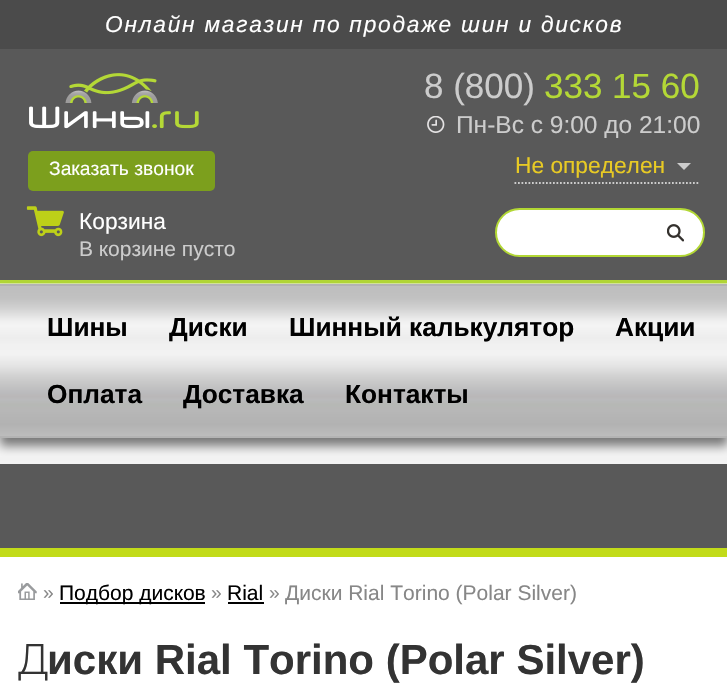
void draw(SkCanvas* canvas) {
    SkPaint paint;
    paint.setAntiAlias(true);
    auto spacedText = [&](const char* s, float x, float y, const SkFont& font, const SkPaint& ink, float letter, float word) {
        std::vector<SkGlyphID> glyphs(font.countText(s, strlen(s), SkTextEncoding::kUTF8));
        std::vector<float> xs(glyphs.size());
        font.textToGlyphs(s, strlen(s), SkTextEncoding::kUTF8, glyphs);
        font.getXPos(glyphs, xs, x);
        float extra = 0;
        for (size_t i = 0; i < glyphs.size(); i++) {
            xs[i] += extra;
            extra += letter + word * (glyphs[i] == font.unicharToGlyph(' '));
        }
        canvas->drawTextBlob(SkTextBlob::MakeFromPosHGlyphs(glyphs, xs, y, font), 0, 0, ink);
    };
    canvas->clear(0xFFFFFFFF);
    paint.setColor(0xFF595959);
    canvas->drawRect(SkRect::MakeXYWH(0, 49, 727, 231), paint);
    paint.setColor(0xFFB2D734);
    canvas->drawRect(SkRect::MakeXYWH(0, 280, 727, 4), paint);
    paint.setColor(0xFF4B4B4B);
    canvas->drawRect(SkRect::MakeXYWH(0, 0, 727, 49), paint);
    SkFont font1(fontMgr->matchFamilyStyle("Liberation Sans", SkFontStyle::Italic()), 22.75f);
    font1.setSubpixel(true);
    paint.setColor(0xFFFFFFFF);
    spacedText("Онлайн магазин по продаже шин и дисков", 105, 32, font1, paint, 1.75f, 0);
    canvas->drawImageRect(SkImages::DeferredFromEncodedData(SkData::MakeFromFileName("img1.png")), SkRect::MakeXYWH(29, 73, 170, 56), SkSamplingOptions());
    SkFont font2(fontMgr->matchFamilyStyle("Liberation Sans", SkFontStyle::Normal()), 35);
    font2.setSubpixel(true);
    paint.setColor(0xFFCCCCCC);
    canvas->drawString("8 (800)", 424, 98, font2, paint);
    paint.setColor(0xFFB4D836);
    canvas->drawString("333 15 60", 544, 98, font2, paint);
    canvas->drawImageRect(SkImages::DeferredFromEncodedData(SkData::MakeFromFileName("img2.png")), SkRect::MakeXYWH(427, 116, 18, 17), SkSamplingOptions());
    SkFont font3(fontMgr->matchFamilyStyle("Liberation Sans", SkFontStyle::Normal()), 24.5f);
    font3.setSubpixel(true);
    paint.setColor(0xFFCCCCCC);
    canvas->drawString("Пн-Вс с 9:00 до 21:00", 456, 133, font3, paint);
    paint.setColor(0xFF7C9F1D);
    canvas->drawRoundRect(SkRect::MakeXYWH(28, 151, 187, 40), 5, 5, paint);
    SkFont font4(fontMgr->matchFamilyStyle("Liberation Sans", SkFontStyle::Normal()), 19.25f);
    font4.setSubpixel(true);
    paint.setColor(0xFFFFFFFF);
    canvas->drawString("Заказать звонок", 49, 175, font4, paint);
    paint.setStyle(SkPaint::kStroke_Style);
    paint.setStrokeWidth(1.8f);
    paint.setColor(0xFFCCCCCC);
    paint.setPathEffect(SkDashPathEffect::Make({{1.75f, 1.75f}}, 0));
    canvas->drawPath(SkPathBuilder().moveTo(514.5f, 183).lineTo(700, 183).detach(), paint);
    paint.setPathEffect(nullptr);
    SkFont font5(fontMgr->matchFamilyStyle("Liberation Sans", SkFontStyle::Normal()), 22.75f);
    font5.setSubpixel(true);
    paint.setStyle(SkPaint::kFill_Style);
    paint.setColor(0xFFE8CA24);
    canvas->drawString("Не определен", 515, 173, font5, paint);
    paint.setColor(0xFFCCCCCC);
    canvas->drawPath(SkPathBuilder().moveTo(677, 163).lineTo(691, 163).lineTo(684, 170).close().detach(), paint);
    canvas->drawImageRect(SkImages::DeferredFromEncodedData(SkData::MakeFromFileName("img3.png")), SkRect::MakeXYWH(26, 206, 38, 31), SkSamplingOptions());
    paint.setColor(0xFFFFFFFF);
    canvas->drawString("Корзина", 79, 229, font5, paint);
    SkFont font6(fontMgr->matchFamilyStyle("Liberation Sans", SkFontStyle::Normal()), 21);
    font6.setSubpixel(true);
    paint.setColor(0xFFCCCCCC);
    canvas->drawString("В корзине пусто", 79, 256, font6, paint);
    paint.setColor(0xFFFFFFFF);
    canvas->drawRoundRect(SkRect::MakeXYWH(496, 209, 208, 47), 23.5f, 23.5f, paint);
    paint.setStyle(SkPaint::kStroke_Style);
    paint.setStrokeWidth(2);
    paint.setColor(0xFFB2D734);
    canvas->drawRoundRect(SkRect::MakeXYWH(496, 209, 208, 47), 23.5f, 23.5f, paint);
    canvas->drawImageRect(SkImages::DeferredFromEncodedData(SkData::MakeFromFileName("img4.png")), SkRect::MakeXYWH(667, 224, 17, 18), SkSamplingOptions());
    canvas->drawImageRect(SkImages::DeferredFromEncodedData(SkData::MakeFromFileName("img5.png")), SkRect::MakeXYWH(0, 283, 727, 181), SkSamplingOptions());
    paint.setStyle(SkPaint::kFill_Style);
    paint.setColor(0xFF777777);
    paint.setMaskFilter(SkMaskFilter::MakeBlur(kNormal_SkBlurStyle, 5));
    canvas->drawRect(SkRect::MakeXYWH(0, 292, 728, 154), paint);
    paint.setMaskFilter(nullptr);
    {
        const SkColor colors[] = {0xFFBFBFBF, 0xFFBEBEBE, 0xFFC1C1C1, 0xFFC4C4C4, 0xFFD0D0D0, 0xFFF0F0F0, 0xFFF4F4F4, 0xFFEDEDED, 0xFFF1F1F1, 0xFFF2F2F2, 0xFFE3E3E3, 0xFFD2D2D2, 0xFFC7C7C7, 0xFFBBBBBD, 0xFFB9B7B8, 0xFFBABABC, 0xFFB6B8B5, 0xFFB7B7B7, 0xFFB2B2B2, 0xFFBCBCBC};
        const float stops[] = {0, 0.02f, 0.08f, 0.1f, 0.15f, 0.24f, 0.27f, 0.35f, 0.4f, 0.46f, 0.54f, 0.6f, 0.65f, 0.71f, 0.74f, 0.76f, 0.79f, 0.83f, 0.92f, 1};
        const SkPoint ends[] = {{364, 285}, {364, 436}};
        paint.setShader(SkGradientShader::MakeLinear(ends, colors, stops, 20, SkTileMode::kClamp));
        paint.setAlpha(255);
    }
    canvas->drawRect(SkRect::MakeXYWH(0, 286, 727, 150), paint);
    paint.setShader(nullptr);
    paint.setColor(0xFFB3B3B3);
    canvas->drawRect(SkRect::MakeXYWH(0, 284, 727, 2), paint);
    canvas->drawRect(SkRect::MakeXYWH(0, 436, 727, 2), paint);
    SkFont font7(fontMgr->matchFamilyStyle("Liberation Sans", SkFontStyle::Bold()), 26.25f);
    font7.setSubpixel(true);
    paint.setColor(0xFF000000);
    canvas->drawString("Шины", 47, 336, font7, paint);
    canvas->drawString("Диски", 169, 336, font7, paint);
    canvas->drawString("Шинный калькулятор", 289, 336, font7, paint);
    canvas->drawString("Акции", 615, 336, font7, paint);
    canvas->drawString("Оплата", 47, 403, font7, paint);
    canvas->drawString("Доставка", 183, 403, font7, paint);
    canvas->drawString("Контакты", 345, 403, font7, paint);
    paint.setColor(0xFF595959);
    canvas->drawRect(SkRect::MakeXYWH(0, 464, 727, 84), paint);
    paint.setColor(0xFFC2DB19);
    canvas->drawRect(SkRect::MakeXYWH(0, 548, 727, 9), paint);
    canvas->drawImageRect(SkImages::DeferredFromEncodedData(SkData::MakeFromFileName("img6.png")), SkRect::MakeXYWH(18, 583, 19, 17), SkSamplingOptions());
    paint.setColor(0xFF878787);
    canvas->drawString("»", 43, 599, font4, paint);
    paint.setColor(0xFF000000);
    canvas->drawRect(SkRect::MakeXYWH(60, 602, 145, 2), paint);
    canvas->drawString("Подбор дисков", 59, 600, font6, paint);
    paint.setColor(0xFF878787);
    canvas->drawString("»", 211, 599, font4, paint);
    paint.setColor(0xFF000000);
    canvas->drawString("Rial", 227, 600, font6, paint);
    canvas->drawRect(SkRect::MakeXYWH(228, 602, 36, 2), paint);
    paint.setColor(0xFF878787);
    canvas->drawString("»", 269, 599, font4, paint);
    canvas->drawString("Диски Rial Torino (Polar Silver)", 285, 600, font6, paint);
    SkFont font8(fontMgr->matchFamilyStyle("Noto Sans", SkFontStyle(300, SkFontStyle::kNormal_Width, SkFontStyle::kUpright_Slant)), 42);
    font8.setSubpixel(true);
    paint.setColor(0xFF333333);
    canvas->drawString("Д", 18, 674, font8, paint);
    SkFont font9(fontMgr->matchFamilyStyle("Liberation Sans", SkFontStyle::Bold()), 42);
    font9.setSubpixel(true);
    canvas->drawString("иски Rial Torino (Polar Silver)", 47, 674, font9, paint);
}
